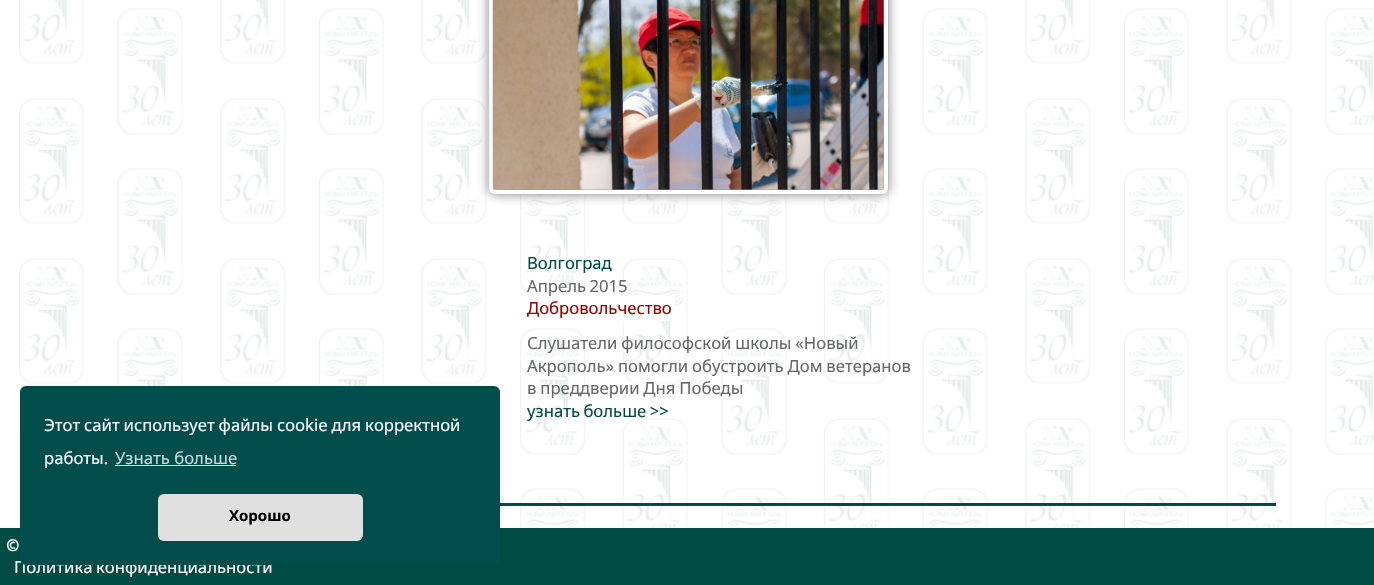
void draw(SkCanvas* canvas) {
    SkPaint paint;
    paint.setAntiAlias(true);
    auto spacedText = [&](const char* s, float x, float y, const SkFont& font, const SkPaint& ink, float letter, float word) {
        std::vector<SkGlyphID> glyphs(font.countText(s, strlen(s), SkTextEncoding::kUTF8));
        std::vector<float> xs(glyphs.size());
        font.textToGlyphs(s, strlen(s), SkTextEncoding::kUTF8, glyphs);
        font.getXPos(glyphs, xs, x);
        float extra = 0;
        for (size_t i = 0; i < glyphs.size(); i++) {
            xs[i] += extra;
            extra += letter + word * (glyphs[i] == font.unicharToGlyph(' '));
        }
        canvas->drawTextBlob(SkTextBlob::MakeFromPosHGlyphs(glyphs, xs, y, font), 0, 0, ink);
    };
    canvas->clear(0xFFFFFFFF);
    canvas->drawImageRect(SkImages::DeferredFromEncodedData(SkData::MakeFromFileName("img1.png")), SkRect::MakeXYWH(19, 0, 1355, 528), SkSamplingOptions());
    paint.setColor(0x80000000);
    paint.setMaskFilter(SkMaskFilter::MakeBlur(kNormal_SkBlurStyle, 6));
    canvas->drawRoundRect(SkRect::MakeXYWH(489, -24, 399, 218), 6, 6, paint);
    paint.setMaskFilter(nullptr);
    paint.setStyle(SkPaint::kStroke_Style);
    paint.setStrokeWidth(4);
    paint.setColor(0xFFFFFFFF);
    canvas->drawRoundRect(SkRect::MakeXYWH(491, -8, 395, 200), 4, 4, paint);
    canvas->drawImageRect(SkImages::DeferredFromEncodedData(SkData::MakeFromFileName("img2.png")), SkRect::MakeXYWH(492, 0, 392, 190), SkSamplingOptions());
    SkFont font1(fontMgr->matchFamilyStyle("Noto Sans", SkFontStyle::Normal()), 16.7f);
    font1.setSubpixel(true);
    paint.setStyle(SkPaint::kFill_Style);
    paint.setColor(0xFF004C45);
    canvas->drawString("Волгоград", 527, 269, font1, paint);
    paint.setColor(0xFF666666);
    spacedText("Апрель 2015", 527, 292, font1, paint, 0, -1);
    paint.setColor(0xFFFFFFFF);
    canvas->drawRect(SkRect::MakeXYWH(622, 296, 53, 25), paint);
    paint.setColor(0xFF960000);
    canvas->drawString("Добровольчество", 527, 314, font1, paint);
    paint.setColor(0xFF666666);
    spacedText("Слушатели философской школы «Новый", 527, 349, font1, paint, 0, -0.5f);
    spacedText("Акрополь» помогли обустроить Дом ветеранов", 527, 372, font1, paint, 0, -0.5f);
    spacedText("в преддверии Дня Победы", 527, 394, font1, paint, 0, -0.5f);
    paint.setColor(0xFF004C45);
    spacedText("узнать больше >>", 527, 417, font1, paint, 0, -1);
    canvas->drawRect(SkRect::MakeXYWH(500, 503, 776, 3), paint);
    canvas->drawRect(SkRect::MakeXYWH(0, 528, 1374, 57), paint);
    SkFont font2(fontMgr->matchFamilyStyle("Ubuntu", SkFontStyle::Normal()), 16.7f);
    font2.setSubpixel(true);
    paint.setColor(0xFFFFFFFF);
    canvas->drawString("©", 6, 551, font2, paint);
    spacedText("Политика конфиденциальности", 14, 573, font1, paint, 0, -1);
    paint.setColor(0xFF014D4B);
    canvas->drawRoundRect(SkRect::MakeXYWH(20, 386, 480, 179), 6, 6, paint);
    paint.setColor(0xFFFFFFFF);
    spacedText("Этот сайт использует файлы cookie для корректной", 44, 431, font1, paint, 0, -0.5f);
    canvas->drawString("работы.", 44, 464, font1, paint);
    paint.setColor(0xFFCCDBDB);
    canvas->drawString("Узнать больше", 115, 464, font1, paint);
    canvas->drawRect(SkRect::MakeXYWH(115, 465, 121, 1), paint);
    paint.setColor(0xFFE0E0E0);
    canvas->drawRoundRect(SkRect::MakeXYWH(158, 494, 205, 47), 6, 6, paint);
    SkFont font3(fontMgr->matchFamilyStyle("Noto Sans", SkFontStyle::Bold()), 15);
    font3.setSubpixel(true);
    paint.setColor(0xFF000000);
    canvas->drawString("Хорошо", 229, 521, font3, paint);
}
